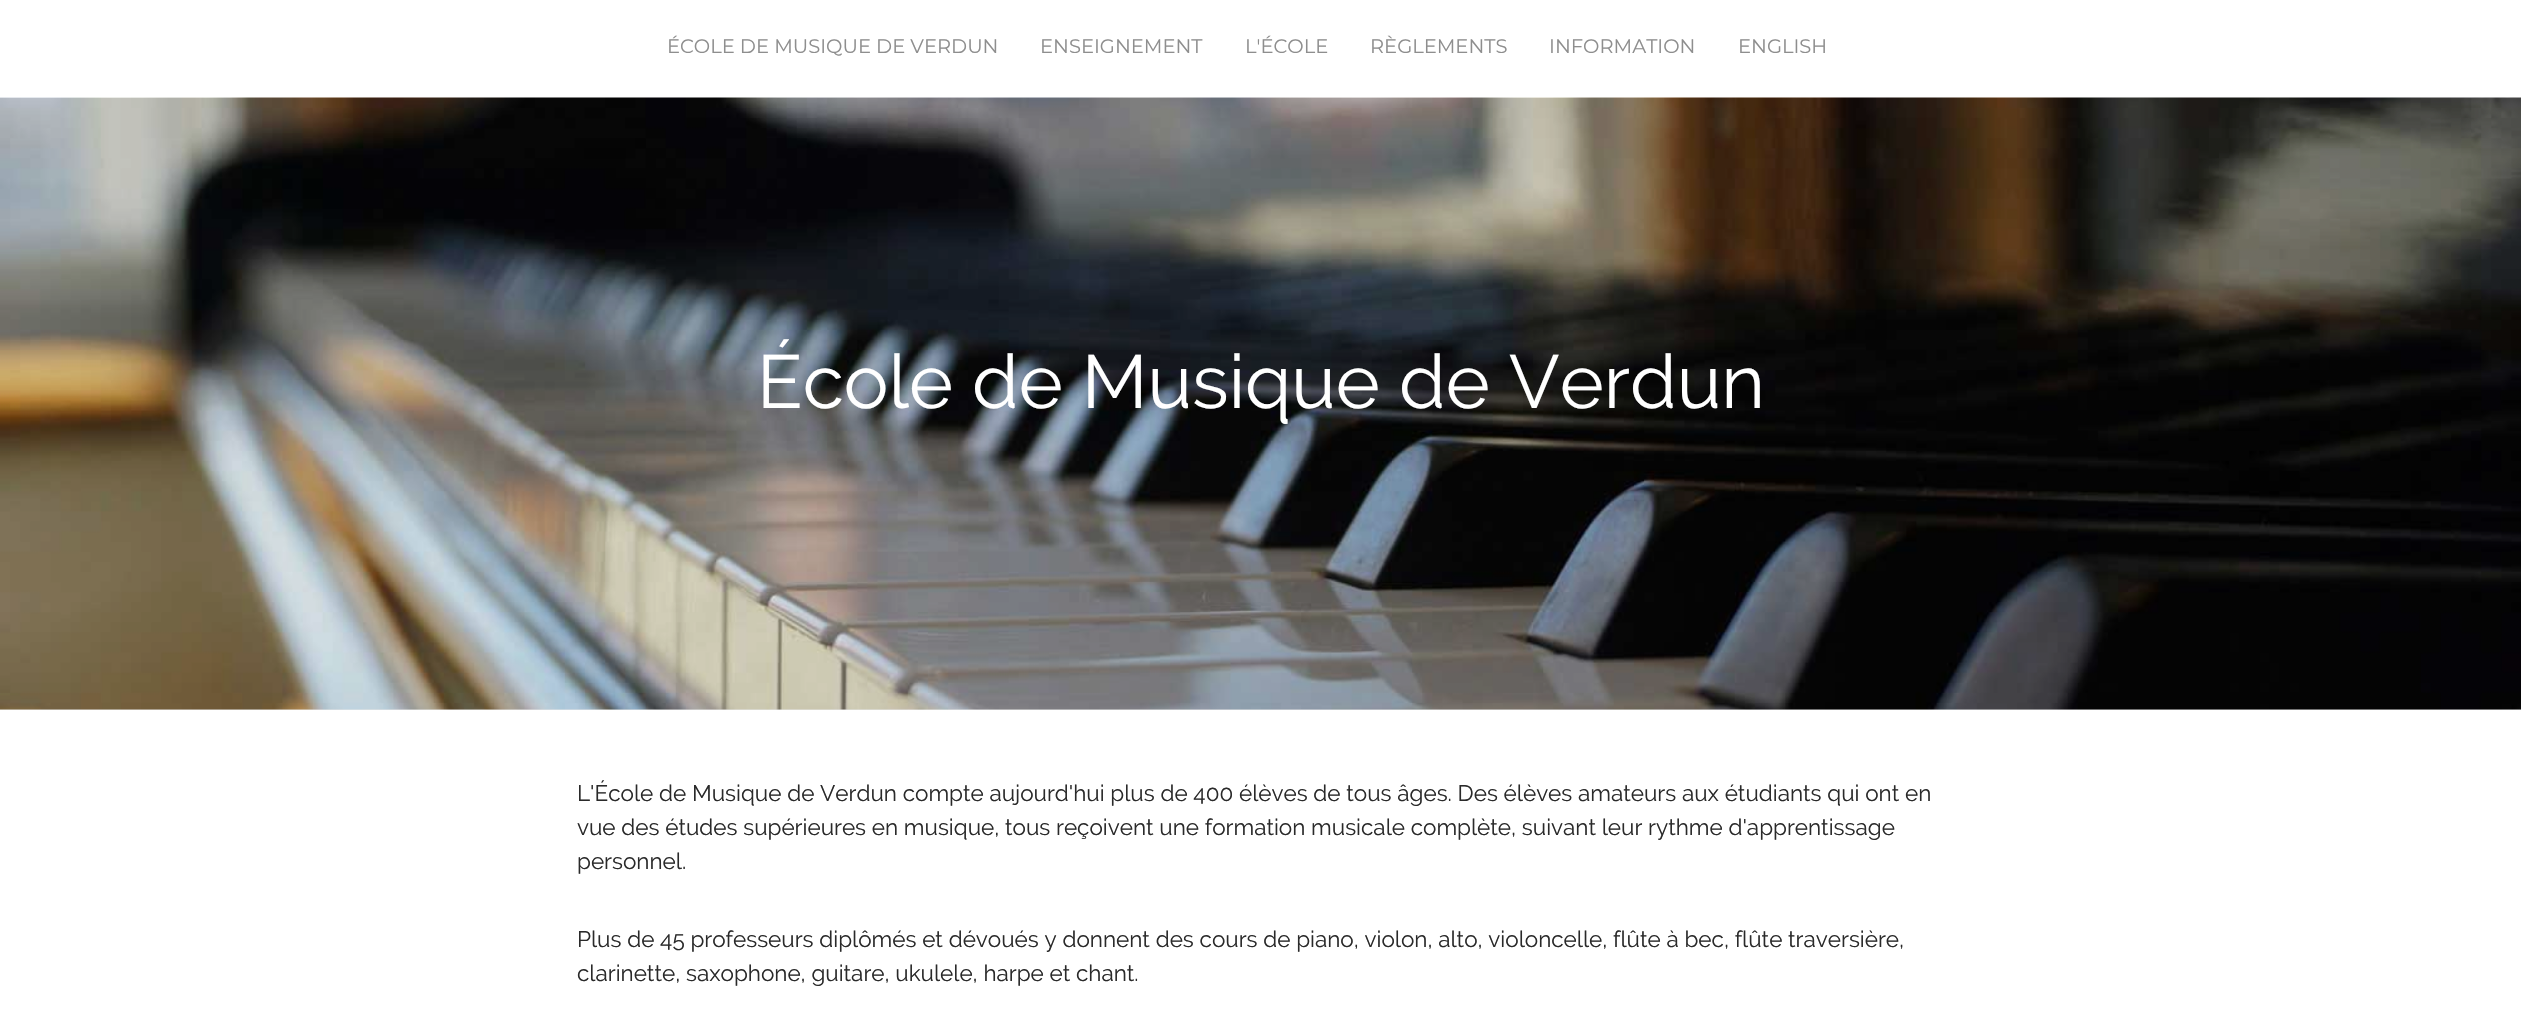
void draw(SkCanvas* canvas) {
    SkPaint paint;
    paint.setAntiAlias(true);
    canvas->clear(0xFFFFFFFF);
    paint.setColor(0xFFE6E6E6);
    canvas->drawRect(SkRect::MakeXYWH(0, 709, 2521, 1), paint);
    SkFont font1(fontMgr->matchFamilyStyle("Montserrat", SkFontStyle::Normal()), 19.5f);
    font1.setSubpixel(true);
    paint.setColor(0xFF8E8E8E);
    canvas->drawString("ÉCOLE DE MUSIQUE DE VERDUN", 667, 53, font1, paint);
    canvas->drawString("ENSEIGNEMENT", 1040, 53, font1, paint);
    canvas->drawString("L'ÉCOLE", 1245, 53, font1, paint);
    canvas->drawString("RÈGLEMENTS", 1370, 53, font1, paint);
    canvas->drawString("INFORMATION", 1549, 53, font1, paint);
    canvas->drawString("ENGLISH", 1738, 53, font1, paint);
    canvas->drawImageRect(SkImages::DeferredFromEncodedData(SkData::MakeFromFileName("img1.png")), SkRect::MakeXYWH(0, 97, 2521, 613), SkSamplingOptions());
    SkFont font2(fontMgr->matchFamilyStyle("Raleway", SkFontStyle::Normal()), 75);
    font2.setSubpixel(true);
    paint.setColor(0xFFFFFFFF);
    canvas->drawString("École de Musique de Verdun", 757, 408, font2, paint);
    SkFont font3(fontMgr->matchFamilyStyle("Raleway", SkFontStyle::Normal()), 22.5f);
    font3.setSubpixel(true);
    paint.setColor(0xFF2A2A2A);
    canvas->drawString("L'École de Musique de Verdun compte aujourd'hui plus de 400 élèves de tous âges. Des élèves amateurs aux étudiants qui ont en", 577, 801, font3, paint);
    canvas->drawString("vue des études supérieures en musique, tous reçoivent une formation musicale complète, suivant leur rythme d'apprentissage", 577, 835, font3, paint);
    canvas->drawString("personnel.", 577, 869, font3, paint);
    canvas->drawString("Plus de 45 professeurs diplômés et dévoués y donnent des cours de piano, violon, alto, violoncelle, flûte à bec, flûte traversière,", 577, 947, font3, paint);
    canvas->drawString("clarinette, saxophone, guitare, ukulele, harpe et chant.", 577, 981, font3, paint);
}
